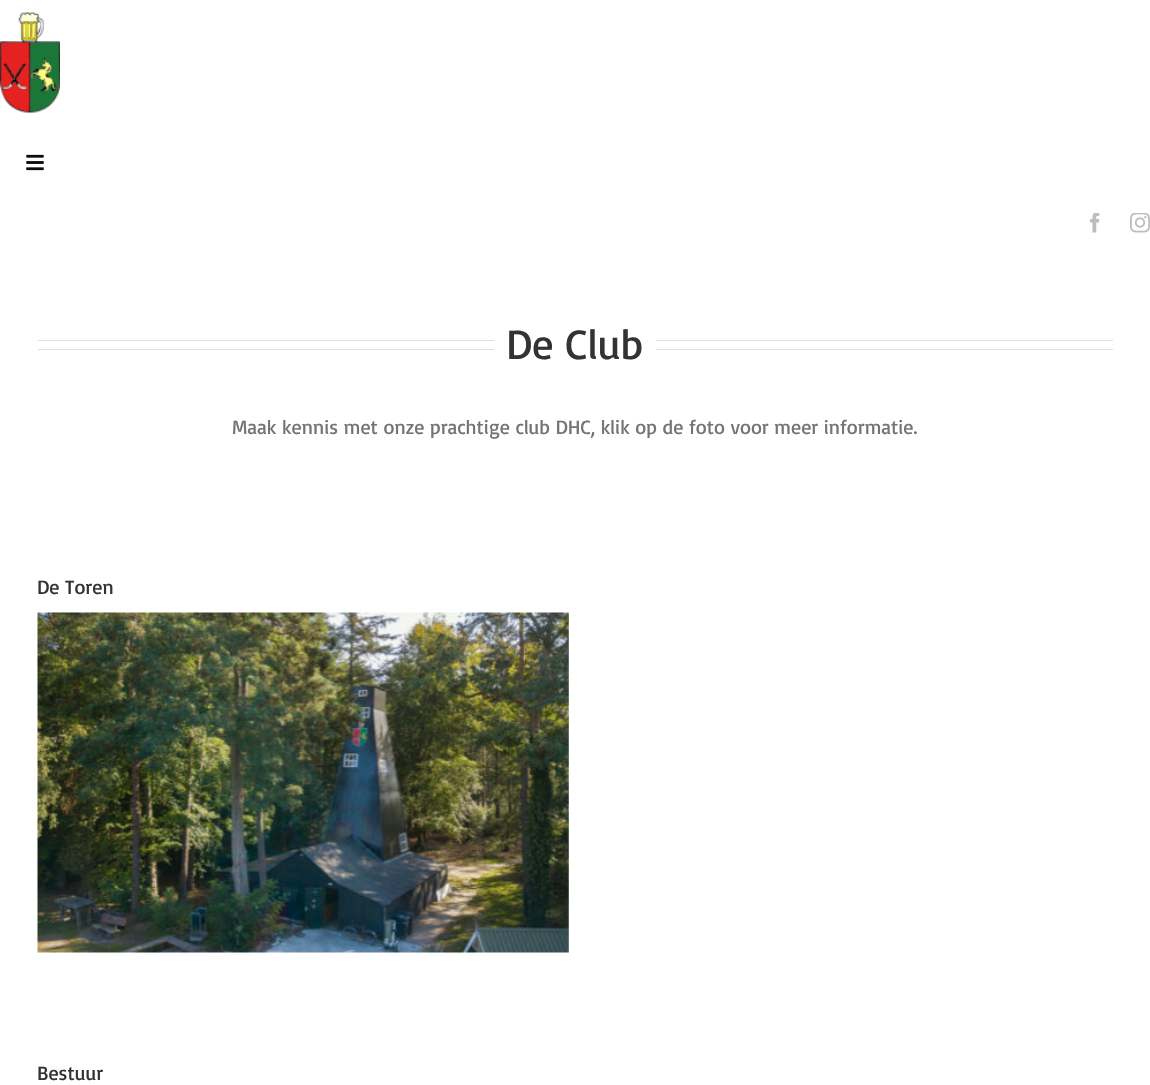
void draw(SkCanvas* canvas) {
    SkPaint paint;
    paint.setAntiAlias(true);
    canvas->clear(0xFFFFFFFF);
    canvas->drawImageRect(SkImages::DeferredFromEncodedData(SkData::MakeFromFileName("img1.png")), SkRect::MakeXYWH(0, 12, 60, 101), SkSamplingOptions());
    canvas->drawImageRect(SkImages::DeferredFromEncodedData(SkData::MakeFromFileName("img2.png")), SkRect::MakeXYWH(26, 154, 18, 17), SkSamplingOptions());
    canvas->drawImageRect(SkImages::DeferredFromEncodedData(SkData::MakeFromFileName("img3.png")), SkRect::MakeXYWH(1090, 213, 10, 20), SkSamplingOptions());
    canvas->drawImageRect(SkImages::DeferredFromEncodedData(SkData::MakeFromFileName("img4.png")), SkRect::MakeXYWH(1130, 213, 20, 20), SkSamplingOptions());
    paint.setColor(0xFFE0DEDE);
    canvas->drawRect(SkRect::MakeXYWH(38, 340, 456, 1), paint);
    canvas->drawRect(SkRect::MakeXYWH(38, 349, 456, 1), paint);
    SkFont font1(fontMgr->matchFamilyStyle("Basic", SkFontStyle::Normal()), 42.5f);
    font1.setSubpixel(true);
    paint.setColor(0xFF333333);
    canvas->drawString("De Club", 506, 359, font1, paint);
    paint.setColor(0xFFE0DEDE);
    canvas->drawRect(SkRect::MakeXYWH(656, 340, 457, 1), paint);
    canvas->drawRect(SkRect::MakeXYWH(656, 349, 457, 1), paint);
    SkFont font2(fontMgr->matchFamilyStyle("Basic", SkFontStyle::Normal()), 20);
    font2.setSubpixel(true);
    paint.setColor(0xFF747474);
    canvas->drawString("Maak kennis met onze prachtige club DHC, klik op de foto voor meer informatie.", 232, 434, font2, paint);
    paint.setColor(0xFF333333);
    canvas->drawString("De Toren", 37, 594, font2, paint);
    canvas->drawImageRect(SkImages::DeferredFromEncodedData(SkData::MakeFromFileName("img5.png")), SkRect::MakeXYWH(37, 612, 532, 341), SkSamplingOptions());
    canvas->drawString("Bestuur", 37, 1080, font2, paint);
}
